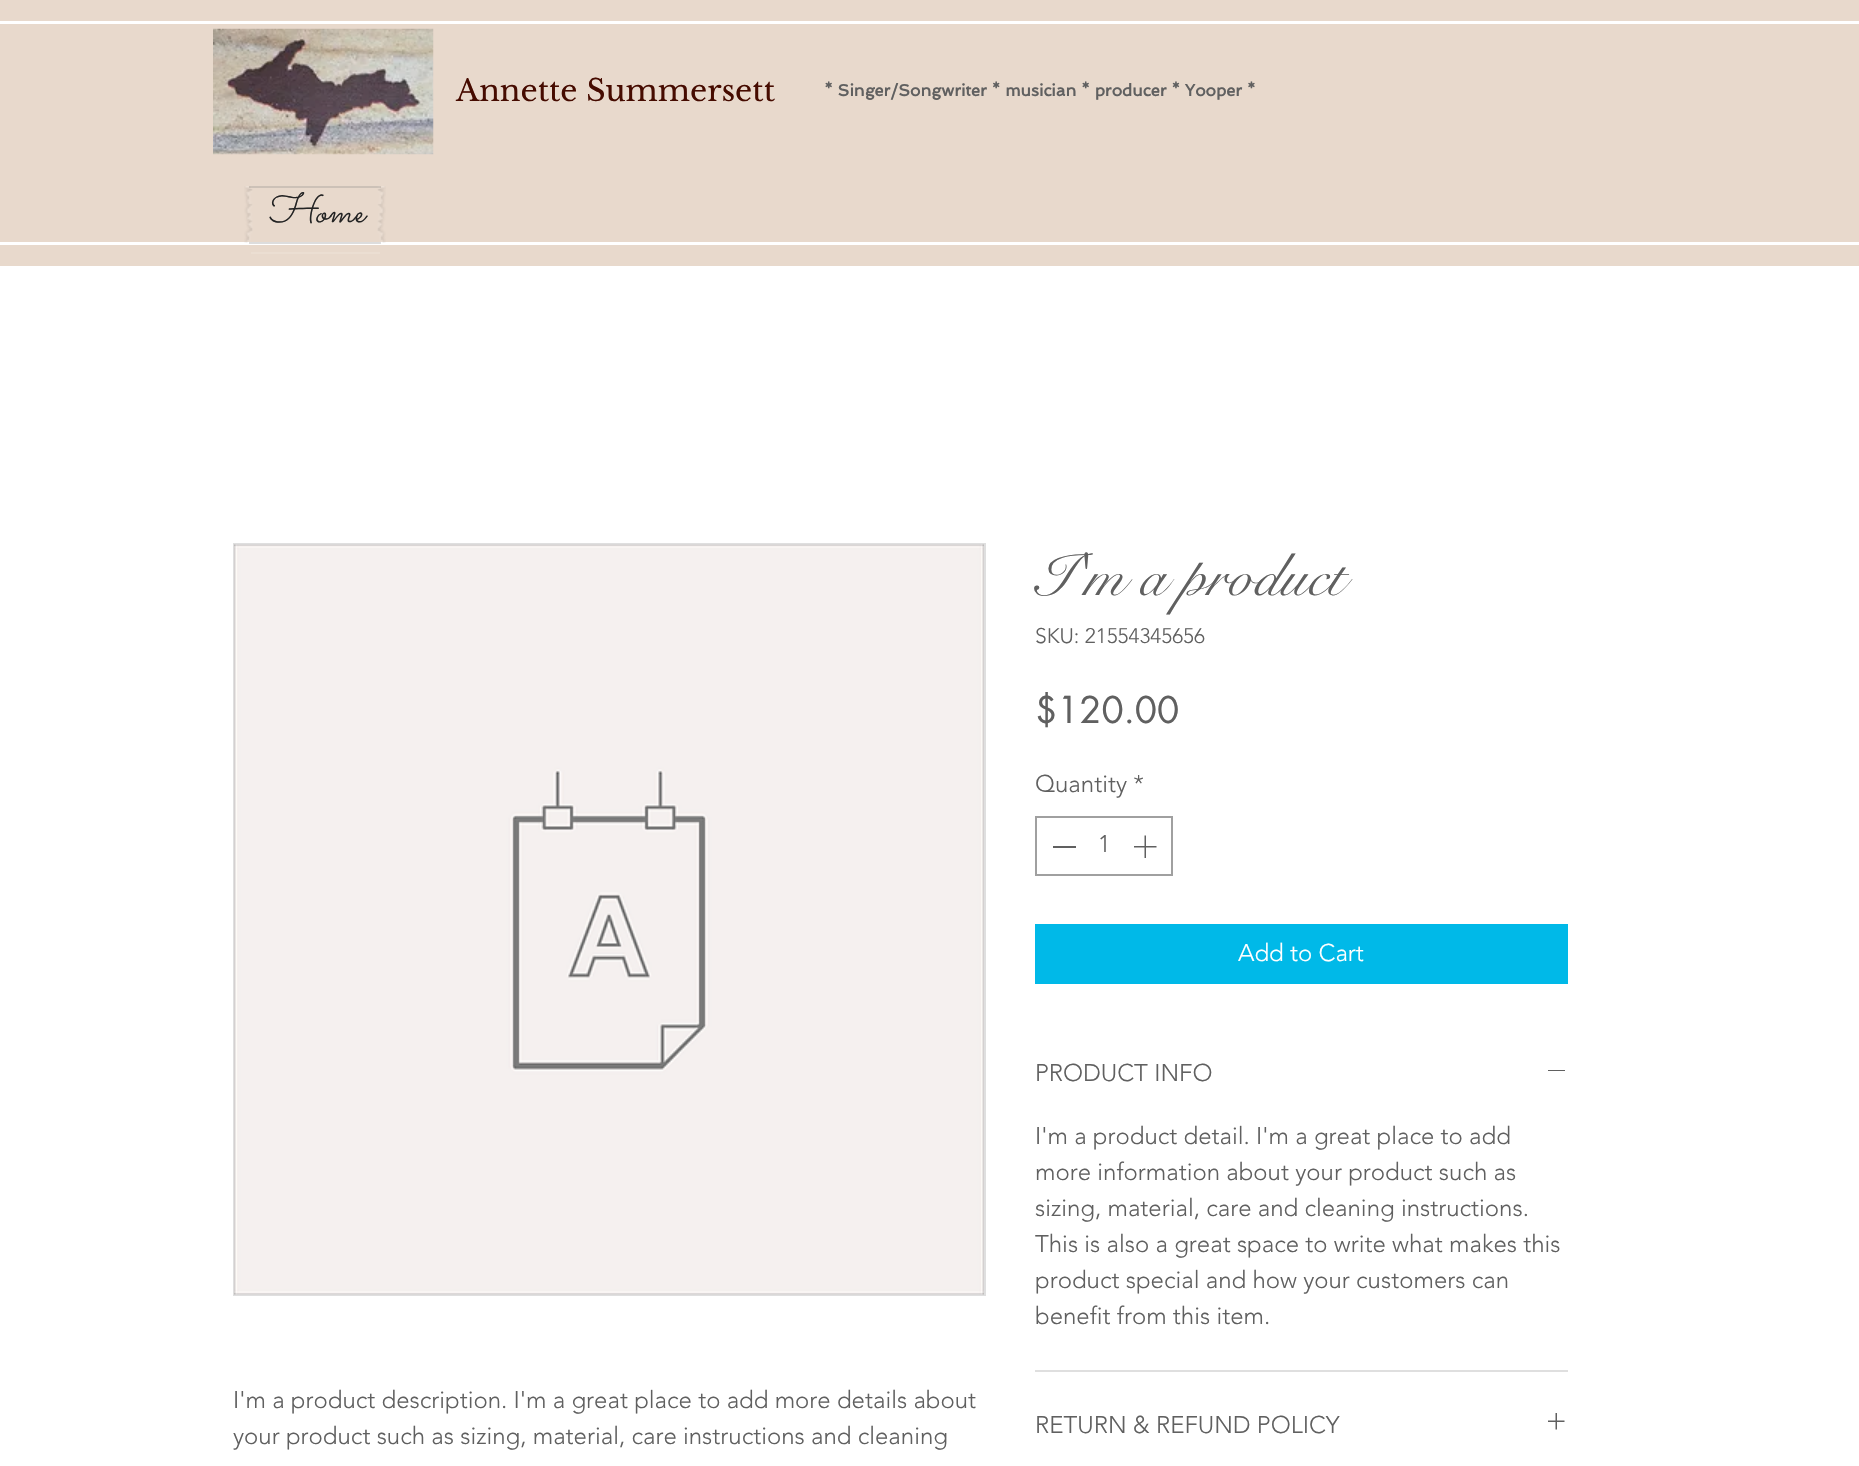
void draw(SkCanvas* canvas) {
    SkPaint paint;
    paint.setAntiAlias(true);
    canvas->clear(0xFFFFFFFF);
    paint.setColor(0xFFE8D9CC);
    canvas->drawRect(SkRect::MakeXYWH(0, 0, 1859, 266), paint);
    paint.setColor(0xFFFFFFFF);
    canvas->drawRect(SkRect::MakeXYWH(0, 21, 1859, 3), paint);
    canvas->drawRect(SkRect::MakeXYWH(0, 242, 1859, 3), paint);
    canvas->drawImageRect(SkImages::DeferredFromEncodedData(SkData::MakeFromFileName("img1.png")), SkRect::MakeXYWH(213, 28, 221, 127), SkSamplingOptions());
    SkFont font1(fontMgr->matchFamilyStyle("Libre Baskerville", SkFontStyle::Normal()), 30);
    font1.setSubpixel(true);
    paint.setColor(0xFF460B00);
    canvas->drawString("Annette Summersett", 456, 101, font1, paint);
    SkFont font2(fontMgr->matchFamilyStyle("Spinnaker", SkFontStyle::Bold()), 16.5f);
    font2.setSubpixel(true);
    paint.setColor(0xFF606060);
    canvas->drawString("* Singer/Songwriter * musician * producer * Yooper *", 824, 96, font2, paint);
    paint.setColor(0xFFEBDED2);
    canvas->drawRect(SkRect::MakeXYWH(251, 186, 129, 2), paint);
    canvas->drawImageRect(SkImages::DeferredFromEncodedData(SkData::MakeFromFileName("img2.png")), SkRect::MakeXYWH(244, 186, 9, 57), SkSamplingOptions());
    paint.setColor(0x21000000);
    canvas->drawRect(SkRect::MakeXYWH(249, 186, 132, 2), paint);
    paint.setColor(0xFFDDDDDD);
    canvas->drawRect(SkRect::MakeXYWH(249, 242, 132, 2), paint);
    canvas->drawImageRect(SkImages::DeferredFromEncodedData(SkData::MakeFromFileName("img3.png")), SkRect::MakeXYWH(377, 186, 9, 57), SkSamplingOptions());
    SkFont font3(fontMgr->matchFamilyStyle("Sacramento", SkFontStyle::Italic()), 40.5f);
    font3.setSubpixel(true);
    paint.setColor(0xFF232323);
    canvas->drawString("Home", 267, 222, font3, paint);
    paint.setColor(0xFFEBDED2);
    canvas->drawRect(SkRect::MakeXYWH(251, 252, 129, 2), paint);
    paint.setStyle(SkPaint::kStroke_Style);
    paint.setStrokeWidth(2);
    paint.setColor(0xFFDFDFDF);
    canvas->drawRect(SkRect::MakeXYWH(234, 544, 751, 751), paint);
    canvas->drawImageRect(SkImages::DeferredFromEncodedData(SkData::MakeFromFileName("img4.png")), SkRect::MakeXYWH(234, 544, 750, 751), SkSamplingOptions());
    SkFont font4(fontMgr->matchFamilyStyle("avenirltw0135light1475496", SkFontStyle(300, SkFontStyle::kNormal_Width, SkFontStyle::kUpright_Slant)), 24);
    font4.setSubpixel(true);
    paint.setStyle(SkPaint::kFill_Style);
    paint.setColor(0xFF606060);
    canvas->drawString("I'm a product description. I'm a great place to add more details about", 233, 1408, font4, paint);
    canvas->drawString("your product such as sizing, material, care instructions and cleaning", 233, 1444, font4, paint);
    SkFont font5(fontMgr->matchFamilyStyle("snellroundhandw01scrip", SkFontStyle::Normal()), 60);
    font5.setSubpixel(true);
    canvas->drawString("I'm a product", 1035, 595, font5, paint);
    SkFont font6(fontMgr->matchFamilyStyle("avenirltw0135light1475496", SkFontStyle(300, SkFontStyle::kNormal_Width, SkFontStyle::kUpright_Slant)), 21);
    font6.setSubpixel(true);
    canvas->drawString("SKU: 21554345656", 1035, 643, font6, paint);
    SkFont font7(fontMgr->matchFamilyStyle("futura", SkFontStyle::Normal()), 36);
    font7.setSubpixel(true);
    canvas->drawString("$120.00", 1035, 723, font7, paint);
    canvas->drawString("Quantity *", 1035, 792, font4, paint);
    paint.setStyle(SkPaint::kStroke_Style);
    paint.setColor(0xFFA0A0A0);
    canvas->drawRect(SkRect::MakeXYWH(1036, 817, 136, 58), paint);
    paint.setStyle(SkPaint::kFill_Style);
    paint.setColor(0xFF606060);
    canvas->drawRect(SkRect::MakeXYWH(1053, 846, 23, 2), paint);
    canvas->drawString("1", 1098, 852, font4, paint);
    canvas->drawImageRect(SkImages::DeferredFromEncodedData(SkData::MakeFromFileName("img5.png")), SkRect::MakeXYWH(1134, 835, 23, 23), SkSamplingOptions());
    paint.setColor(0xFF00B9E8);
    canvas->drawRect(SkRect::MakeXYWH(1035, 924, 533, 60), paint);
    paint.setColor(0xFFFFFFFF);
    canvas->drawString("Add to Cart", 1238, 961, font4, paint);
    paint.setColor(0xFFDFDFDF);
    canvas->drawRect(SkRect::MakeXYWH(1035, 1370, 533, 2), paint);
    paint.setColor(0xFF606060);
    canvas->drawString("PRODUCT INFO", 1035, 1081, font4, paint);
    canvas->drawRect(SkRect::MakeXYWH(1548, 1070, 17, 1), paint);
    canvas->drawString("I'm a product detail. I'm a great place to add", 1035, 1144, font4, paint);
    canvas->drawString("more information about your product such as", 1035, 1180, font4, paint);
    canvas->drawString("sizing, material, care and cleaning instructions.", 1035, 1216, font4, paint);
    canvas->drawString("This is also a great space to write what makes this", 1035, 1252, font4, paint);
    canvas->drawString("product special and how your customers can", 1035, 1288, font4, paint);
    canvas->drawString("benefit from this item.", 1035, 1324, font4, paint);
    canvas->drawString("RETURN & REFUND POLICY", 1035, 1433, font4, paint);
    canvas->drawImageRect(SkImages::DeferredFromEncodedData(SkData::MakeFromFileName("img6.png")), SkRect::MakeXYWH(1548, 1413, 17, 17), SkSamplingOptions());
}
